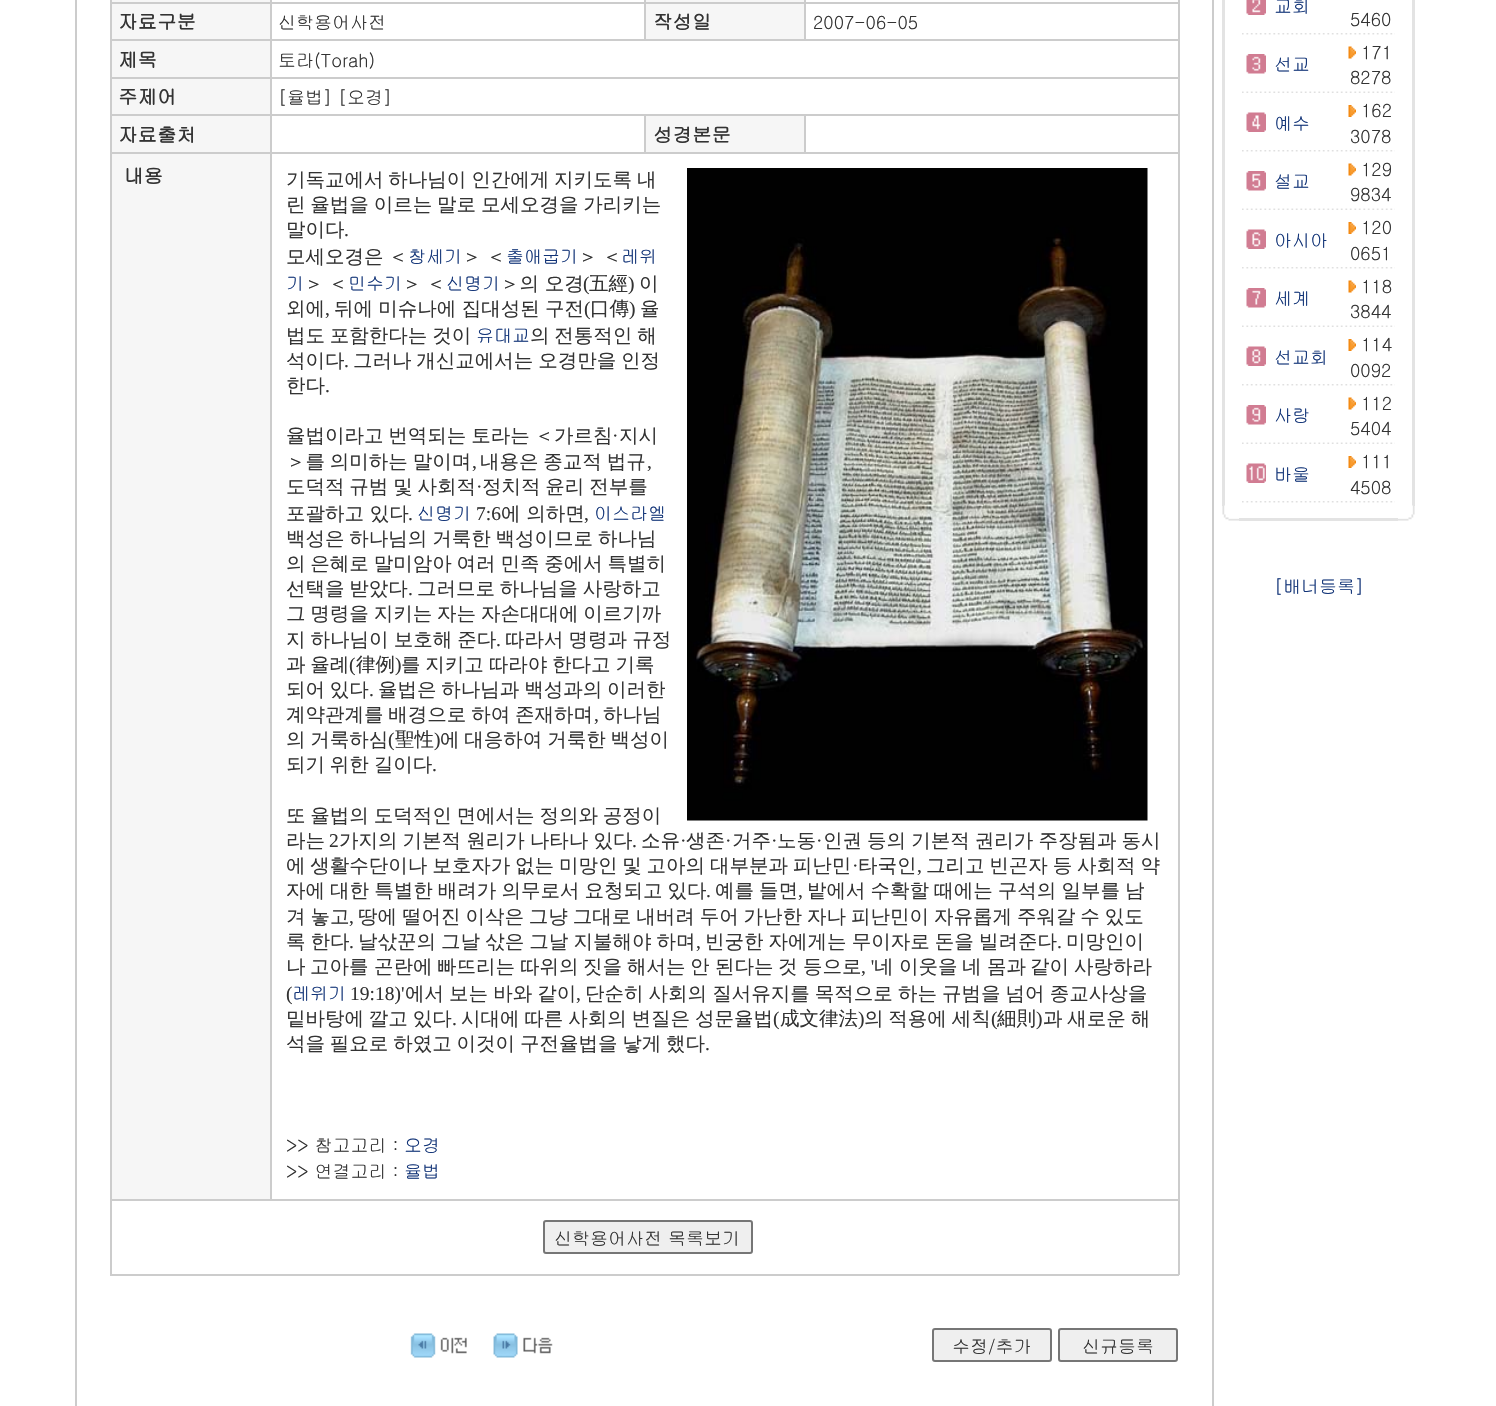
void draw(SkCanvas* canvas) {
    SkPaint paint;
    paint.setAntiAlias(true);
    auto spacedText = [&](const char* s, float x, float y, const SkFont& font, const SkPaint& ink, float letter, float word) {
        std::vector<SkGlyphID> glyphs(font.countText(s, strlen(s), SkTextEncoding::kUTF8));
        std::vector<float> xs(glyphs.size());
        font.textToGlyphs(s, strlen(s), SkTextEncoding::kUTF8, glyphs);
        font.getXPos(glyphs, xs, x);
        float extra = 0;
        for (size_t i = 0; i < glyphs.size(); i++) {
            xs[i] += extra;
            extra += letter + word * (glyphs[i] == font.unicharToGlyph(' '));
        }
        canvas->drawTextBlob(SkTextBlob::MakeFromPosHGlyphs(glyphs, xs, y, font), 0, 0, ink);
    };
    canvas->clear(0xFFFFFFFF);
    paint.setStyle(SkPaint::kStroke_Style);
    paint.setStrokeWidth(2);
    paint.setColor(0xFFCCCCCC);
    canvas->drawRect(SkRect::MakeXYWH(76, -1, 1137, 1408), paint);
    paint.setStyle(SkPaint::kFill_Style);
    canvas->drawRect(SkRect::MakeXYWH(1178, 0, 2, 1275), paint);
    canvas->drawRect(SkRect::MakeXYWH(110, 1274, 1069, 2), paint);
    paint.setColor(0xFFF6F6F6);
    canvas->drawRect(SkRect::MakeXYWH(110, 0, 160, 2), paint);
    paint.setColor(0xFFCCCCCC);
    canvas->drawRect(SkRect::MakeXYWH(110, 0, 2, 1275), paint);
    canvas->drawRect(SkRect::MakeXYWH(804, 2, 375, 2), paint);
    canvas->drawRect(SkRect::MakeXYWH(270, 39, 909, 2), paint);
    canvas->drawRect(SkRect::MakeXYWH(804, 2, 2, 39), paint);
    canvas->drawRect(SkRect::MakeXYWH(644, 2, 162, 2), paint);
    canvas->drawRect(SkRect::MakeXYWH(644, 2, 2, 39), paint);
    canvas->drawRect(SkRect::MakeXYWH(270, 2, 375, 2), paint);
    canvas->drawRect(SkRect::MakeXYWH(270, 77, 909, 2), paint);
    canvas->drawRect(SkRect::MakeXYWH(804, 114, 375, 2), paint);
    canvas->drawRect(SkRect::MakeXYWH(270, 152, 909, 2), paint);
    canvas->drawRect(SkRect::MakeXYWH(804, 114, 2, 39), paint);
    canvas->drawRect(SkRect::MakeXYWH(644, 114, 162, 2), paint);
    canvas->drawRect(SkRect::MakeXYWH(644, 114, 2, 39), paint);
    canvas->drawRect(SkRect::MakeXYWH(270, 114, 375, 2), paint);
    canvas->drawRect(SkRect::MakeXYWH(110, 1199, 1069, 2), paint);
    canvas->drawRect(SkRect::MakeXYWH(270, 152, 2, 1048), paint);
    canvas->drawRect(SkRect::MakeXYWH(110, 152, 162, 2), paint);
    canvas->drawRect(SkRect::MakeXYWH(270, 114, 2, 39), paint);
    canvas->drawRect(SkRect::MakeXYWH(110, 114, 162, 2), paint);
    canvas->drawRect(SkRect::MakeXYWH(270, 77, 2, 39), paint);
    canvas->drawRect(SkRect::MakeXYWH(110, 77, 162, 2), paint);
    canvas->drawRect(SkRect::MakeXYWH(270, 39, 2, 39), paint);
    canvas->drawRect(SkRect::MakeXYWH(110, 39, 162, 2), paint);
    canvas->drawRect(SkRect::MakeXYWH(270, 2, 2, 39), paint);
    canvas->drawRect(SkRect::MakeXYWH(110, 2, 162, 2), paint);
    canvas->drawRect(SkRect::MakeXYWH(270, 0, 2, 3), paint);
    paint.setColor(0xFFF6F6F6);
    canvas->drawRect(SkRect::MakeXYWH(645, 0, 159, 2), paint);
    paint.setColor(0xFFCCCCCC);
    canvas->drawRect(SkRect::MakeXYWH(644, 0, 2, 3), paint);
    canvas->drawRect(SkRect::MakeXYWH(804, 0, 2, 3), paint);
    paint.setColor(0xFFF6F6F6);
    canvas->drawRect(SkRect::MakeXYWH(112, 4, 158, 35), paint);
    SkFont font1(fontMgr->matchFamilyStyle("Gulim", SkFontStyle::Bold()), 19.5f);
    font1.setSubpixel(true);
    paint.setColor(0xFF333333);
    canvas->drawString("자료구분", 118, 29, font1, paint);
    SkFont font2(fontMgr->matchFamilyStyle("Gulim", SkFontStyle::Normal()), 18);
    font2.setSubpixel(true);
    canvas->drawString("신학용어사전", 278, 29, font2, paint);
    paint.setColor(0xFFF6F6F6);
    canvas->drawRect(SkRect::MakeXYWH(646, 4, 158, 35), paint);
    paint.setColor(0xFF333333);
    canvas->drawString("작성일", 653, 29, font1, paint);
    canvas->drawString("2007-06-05", 813, 29, font2, paint);
    paint.setColor(0xFFF6F6F6);
    canvas->drawRect(SkRect::MakeXYWH(112, 41, 158, 36), paint);
    paint.setColor(0xFF333333);
    canvas->drawString("제목", 118, 67, font1, paint);
    canvas->drawString("토라(Torah)", 278, 67, font2, paint);
    paint.setColor(0xFFF6F6F6);
    canvas->drawRect(SkRect::MakeXYWH(112, 79, 158, 35), paint);
    paint.setColor(0xFF333333);
    canvas->drawString("주제어", 118, 104, font1, paint);
    canvas->drawString("[율법] [오경]", 278, 104, font2, paint);
    paint.setColor(0xFFF6F6F6);
    canvas->drawRect(SkRect::MakeXYWH(112, 116, 158, 36), paint);
    paint.setColor(0xFF333333);
    canvas->drawString("자료출처", 118, 142, font1, paint);
    paint.setColor(0xFFF6F6F6);
    canvas->drawRect(SkRect::MakeXYWH(646, 116, 158, 36), paint);
    paint.setColor(0xFF333333);
    canvas->drawString("성경본문", 653, 142, font1, paint);
    paint.setColor(0xFFF6F6F6);
    canvas->drawRect(SkRect::MakeXYWH(112, 154, 158, 1045), paint);
    paint.setColor(0xFF333333);
    canvas->drawString("내용", 124, 183, font1, paint);
    SkFont font3(fontMgr->matchFamilyStyle("WenQuanYi Zen Hei", SkFontStyle(500, SkFontStyle::kNormal_Width, SkFontStyle::kUpright_Slant)), 19.5f);
    font3.setSubpixel(true);
    spacedText("기독교에서 하나님이 인간에게 지키도록 내", 286, 186, font3, paint, 0, -1);
    canvas->drawImageRect(SkImages::DeferredFromEncodedData(SkData::MakeFromFileName("img1.png")), SkRect::MakeXYWH(687, 168, 461, 653), SkSamplingOptions());
    spacedText("린 율법을 이르는 말로 모세오경을 가리키는", 286, 211, font3, paint, 0, -1);
    canvas->drawString("말이다", 286, 236, font3, paint);
    SkFont font4(fontMgr->matchFamilyStyle("Liberation Serif", SkFontStyle::Normal()), 19.5f);
    font4.setSubpixel(true);
    canvas->drawString(".", 344, 236, font4, paint);
    spacedText("모세오경은 ＜", 286, 263, font3, paint, 0, -1);
    paint.setColor(0xFF113377);
    canvas->drawString("창세기", 408, 263, font2, paint);
    paint.setColor(0xFF333333);
    spacedText("＞ ＜", 462, 263, font3, paint, 0, -1);
    paint.setColor(0xFF113377);
    canvas->drawString("출애굽기", 506, 263, font2, paint);
    paint.setColor(0xFF333333);
    spacedText("＞ ＜", 578, 263, font3, paint, 0, -1);
    paint.setColor(0xFF113377);
    canvas->drawString("레위", 621, 263, font2, paint);
    canvas->drawString("기", 286, 290, font2, paint);
    paint.setColor(0xFF333333);
    spacedText("＞ ＜", 304, 290, font3, paint, 0, -1);
    paint.setColor(0xFF113377);
    canvas->drawString("민수기", 348, 290, font2, paint);
    paint.setColor(0xFF333333);
    spacedText("＞ ＜", 402, 290, font3, paint, 0, -1);
    paint.setColor(0xFF113377);
    canvas->drawString("신명기", 446, 290, font2, paint);
    paint.setColor(0xFF333333);
    canvas->drawString("＞의 오경", 500, 290, font3, paint);
    canvas->drawString("(", 583, 290, font4, paint);
    canvas->drawString("五經", 589, 290, font3, paint);
    canvas->drawString(")", 628, 290, font4, paint);
    canvas->drawString("이", 639, 290, font3, paint);
    canvas->drawString("외에", 286, 315, font3, paint);
    canvas->drawString(",", 325, 315, font4, paint);
    spacedText("뒤에 미슈나에 집대성된 구전", 334, 315, font3, paint, 0, -0.5f);
    canvas->drawString("(", 584, 315, font4, paint);
    canvas->drawString("口傳", 590, 315, font3, paint);
    canvas->drawString(")", 629, 315, font4, paint);
    canvas->drawString("율", 640, 315, font3, paint);
    spacedText("법도 포함한다는 것이", 286, 342, font3, paint, 0, -1);
    paint.setColor(0xFF113377);
    canvas->drawString("유대교", 476, 342, font2, paint);
    paint.setColor(0xFF333333);
    spacedText("의 전통적인 해", 530, 342, font3, paint, 0, -1);
    canvas->drawString("석이다", 286, 367, font3, paint);
    canvas->drawString(".", 344, 367, font4, paint);
    spacedText("그러나 개신교에서는 오경만을 인정", 353, 367, font3, paint, 0, -1);
    canvas->drawString("한다", 286, 392, font3, paint);
    canvas->drawString(".", 325, 392, font4, paint);
    spacedText("율법이라고 번역되는 토라는 ＜가르침", 286, 442, font3, paint, 0, -1);
    canvas->drawString("·", 612, 442, font4, paint);
    canvas->drawString("지시", 619, 442, font3, paint);
    spacedText("＞를 의미하는 말이며", 286, 468, font3, paint, 0, -1);
    canvas->drawString(",", 472, 468, font4, paint);
    spacedText("내용은 종교적 법규", 480, 468, font3, paint, 0, -1);
    canvas->drawString(",", 647, 468, font4, paint);
    spacedText("도덕적 규범 및 사회적", 286, 493, font3, paint, 0, -1);
    canvas->drawString("·", 476, 493, font4, paint);
    spacedText("정치적 윤리 전부를", 482, 493, font3, paint, 0, -1);
    canvas->drawString("포괄하고 있다", 286, 520, font3, paint);
    canvas->drawString(".", 408, 520, font4, paint);
    paint.setColor(0xFF113377);
    canvas->drawString("신명기", 417, 520, font2, paint);
    paint.setColor(0xFF333333);
    canvas->drawString("7:6", 476, 520, font4, paint);
    canvas->drawString("에 의하면", 501, 520, font3, paint);
    canvas->drawString(",", 584, 520, font4, paint);
    paint.setColor(0xFF113377);
    canvas->drawString("이스라엘", 594, 520, font2, paint);
    paint.setColor(0xFF333333);
    spacedText("백성은 하나님의 거룩한 백성이므로 하나님", 286, 545, font3, paint, 0, -1);
    spacedText("의 은혜로 말미암아 여러 민족 중에서 특별히", 286, 570, font3, paint, 0, -1);
    spacedText("선택을 받았다", 286, 595, font3, paint, 0, -1);
    canvas->drawString(".", 408, 595, font4, paint);
    spacedText("그러므로 하나님을 사랑하고", 417, 595, font3, paint, 0, -1);
    spacedText("그 명령을 지키는 자는 자손대대에 이르기까", 286, 620, font3, paint, 0, -1);
    spacedText("지 하나님이 보호해 준다", 286, 646, font3, paint, 0, -0.75f);
    canvas->drawString(".", 496, 646, font4, paint);
    spacedText("따라서 명령과 규정", 505, 646, font3, paint, 0, -0.75f);
    spacedText("과 율례", 286, 671, font3, paint, 0, -1);
    canvas->drawString("(", 349, 671, font4, paint);
    canvas->drawString("律例", 356, 671, font3, paint);
    canvas->drawString(")", 395, 671, font4, paint);
    spacedText("를 지키고 따라야 한다고 기록", 401, 671, font3, paint, 0, -1);
    spacedText("되어 있다", 286, 696, font3, paint, 0, -1);
    canvas->drawString(".", 369, 696, font4, paint);
    spacedText("율법은 하나님과 백성과의 이러한", 378, 696, font3, paint, 0, -1);
    spacedText("계약관계를 배경으로 하여 존재하며", 286, 721, font3, paint, 0, -1);
    canvas->drawString(",", 594, 721, font4, paint);
    canvas->drawString("하나님", 603, 721, font3, paint);
    spacedText("의 거룩하심", 286, 746, font3, paint, 0, -1);
    canvas->drawString("(", 388, 746, font4, paint);
    canvas->drawString("聖性", 395, 746, font3, paint);
    canvas->drawString(")", 434, 746, font4, paint);
    spacedText("에 대응하여 거룩한 백성이", 440, 746, font3, paint, 0, -1);
    spacedText("되기 위한 길이다", 286, 771, font3, paint, 0, -1);
    canvas->drawString(".", 432, 771, font4, paint);
    spacedText("또 율법의 도덕적인 면에서는 정의와 공정이", 286, 822, font3, paint, 0, -1);
    canvas->drawString("라는", 286, 847, font3, paint);
    canvas->drawString("2", 329, 847, font4, paint);
    spacedText("가지의 기본적 원리가 나타나 있다", 339, 847, font3, paint, 0, -0.75f);
    canvas->drawString("소유", 641, 847, font3, paint);
    canvas->drawString("·", 680, 847, font4, paint);
    canvas->drawString("생존", 686, 847, font3, paint);
    canvas->drawString("·", 725, 847, font4, paint);
    canvas->drawString("거주", 732, 847, font3, paint);
    canvas->drawString("·", 771, 847, font4, paint);
    canvas->drawString("노동", 777, 847, font3, paint);
    canvas->drawString("·", 816, 847, font4, paint);
    spacedText("인권 등의 기본적 권리가 주장됨과 동시", 823, 847, font3, paint, 0, -0.75f);
    canvas->drawString(".", 632, 847, font4, paint);
    spacedText("에 생활수단이나 보호자가 없는 미망인 및 고아의 대부분과 피난민", 286, 872, font3, paint, 0, -1);
    canvas->drawString("·", 852, 872, font4, paint);
    canvas->drawString("타국인", 858, 872, font3, paint);
    spacedText("그리고 빈곤자 등 사회적 약", 926, 872, font3, paint, 0, -1);
    canvas->drawString(",", 917, 872, font4, paint);
    spacedText("자에 대한 특별한 배려가 의무로서 요청되고 있다", 286, 897, font3, paint, 0, -0.75f);
    canvas->drawString(".", 706, 897, font4, paint);
    spacedText("예를 들면", 715, 897, font3, paint, 0, -0.75f);
    canvas->drawString(",", 798, 897, font4, paint);
    spacedText("밭에서 수확할 때에는 구석의 일부를 남", 807, 897, font3, paint, 0, -0.75f);
    spacedText("겨 놓고", 286, 923, font3, paint, 0, -0.9f);
    canvas->drawString(",", 349, 923, font4, paint);
    spacedText("땅에 떨어진 이삭은 그냥 그대로 내버려 두어 가난한 자나 피난민이 자유롭게 주워갈 수 있도", 358, 923, font3, paint, 0, -0.9f);
    spacedText("록 한다", 286, 948, font3, paint, 0, -0.75f);
    canvas->drawString(".", 349, 948, font4, paint);
    spacedText("날삯꾼의 그날 삯은 그날 지불해야 하며", 358, 948, font3, paint, 0, -0.75f);
    canvas->drawString(",", 696, 948, font4, paint);
    spacedText("빈궁한 자에게는 무이자로 돈을 빌려준다", 705, 948, font3, paint, 0, -0.75f);
    canvas->drawString(".", 1057, 948, font4, paint);
    canvas->drawString("미망인이", 1066, 948, font3, paint);
    canvas->drawString("나", 286, 973, font3, paint);
    canvas->drawString("고아를", 310, 973, font3, paint);
    canvas->drawString("곤란에", 374, 973, font3, paint);
    canvas->drawString("빠뜨리는", 437, 973, font3, paint);
    canvas->drawString("따위의", 520, 973, font3, paint);
    canvas->drawString("짓을", 583, 973, font3, paint);
    canvas->drawString("해서는", 627, 973, font3, paint);
    canvas->drawString("안", 690, 973, font3, paint);
    canvas->drawString("된다는", 715, 973, font3, paint);
    canvas->drawString("것", 778, 973, font3, paint);
    canvas->drawString("등으로", 803, 973, font3, paint);
    canvas->drawString(", '", 861, 973, font4, paint);
    canvas->drawString("네", 874, 973, font3, paint);
    canvas->drawString("이웃을", 899, 973, font3, paint);
    canvas->drawString("네", 962, 973, font3, paint);
    canvas->drawString("몸과", 987, 973, font3, paint);
    canvas->drawString("같이", 1030, 973, font3, paint);
    canvas->drawString("사랑하라", 1074, 973, font3, paint);
    canvas->drawString("(", 286, 1000, font4, paint);
    paint.setColor(0xFF113377);
    canvas->drawString("레위기", 292, 1000, font2, paint);
    paint.setColor(0xFF333333);
    canvas->drawString("19:18)'", 350, 1000, font4, paint);
    spacedText("에서 보는 바와 같이", 405, 1000, font3, paint, 0, -0.75f);
    canvas->drawString(",", 576, 1000, font4, paint);
    spacedText("단순히 사회의 질서유지를 목적으로 하는 규범을 넘어 종교사상을", 585, 1000, font3, paint, 0, -0.75f);
    spacedText("밑바탕에 깔고 있다", 286, 1025, font3, paint, 0, -1);
    canvas->drawString(".", 452, 1025, font4, paint);
    spacedText("시대에 따른 사회의 변질은 성문율법", 461, 1025, font3, paint, 0, -1);
    canvas->drawString("(", 773, 1025, font4, paint);
    canvas->drawString("成文律法", 780, 1025, font3, paint);
    canvas->drawString(")", 858, 1025, font4, paint);
    spacedText("의 적용에 세칙", 864, 1025, font3, paint, 0, -1);
    canvas->drawString("(", 991, 1025, font4, paint);
    canvas->drawString("細則", 997, 1025, font3, paint);
    canvas->drawString(")", 1036, 1025, font4, paint);
    spacedText("과 새로운 해", 1043, 1025, font3, paint, 0, -1);
    spacedText("석을 필요로 하였고 이것이 구전율법을 낳게 했다", 286, 1050, font3, paint, 0, -1);
    canvas->drawString(".", 705, 1050, font4, paint);
    canvas->drawString(">> 참고고리 :", 286, 1152, font2, paint);
    paint.setColor(0xFF113377);
    canvas->drawString("오경", 404, 1152, font2, paint);
    paint.setColor(0xFF333333);
    canvas->drawString(">> 연결고리 :", 286, 1178, font2, paint);
    paint.setColor(0xFF113377);
    canvas->drawString("율법", 404, 1178, font2, paint);
    paint.setColor(0xFFEFEFEF);
    canvas->drawRoundRect(SkRect::MakeXYWH(544, 1221, 208, 32), 2, 2, paint);
    paint.setStyle(SkPaint::kStroke_Style);
    paint.setColor(0xFF767676);
    canvas->drawRoundRect(SkRect::MakeXYWH(544, 1221, 208, 32), 2, 2, paint);
    paint.setStyle(SkPaint::kFill_Style);
    paint.setColor(0xFF333333);
    canvas->drawString("신학용어사전 목록보기", 554, 1245, font2, paint);
    canvas->drawImageRect(SkImages::DeferredFromEncodedData(SkData::MakeFromFileName("img2.png")), SkRect::MakeXYWH(410, 1333, 57, 25), SkSamplingOptions());
    canvas->drawImageRect(SkImages::DeferredFromEncodedData(SkData::MakeFromFileName("img3.png")), SkRect::MakeXYWH(493, 1333, 60, 25), SkSamplingOptions());
    paint.setColor(0xFFEFEFEF);
    canvas->drawRoundRect(SkRect::MakeXYWH(933, 1329, 118, 32), 2, 2, paint);
    paint.setStyle(SkPaint::kStroke_Style);
    paint.setColor(0xFF767676);
    canvas->drawRoundRect(SkRect::MakeXYWH(933, 1329, 118, 32), 2, 2, paint);
    paint.setStyle(SkPaint::kFill_Style);
    paint.setColor(0xFF333333);
    canvas->drawString("수정/추가", 952, 1353, font2, paint);
    paint.setColor(0xFFEFEFEF);
    canvas->drawRoundRect(SkRect::MakeXYWH(1059, 1329, 118, 32), 2, 2, paint);
    paint.setStyle(SkPaint::kStroke_Style);
    paint.setColor(0xFF767676);
    canvas->drawRoundRect(SkRect::MakeXYWH(1059, 1329, 118, 32), 2, 2, paint);
    paint.setStyle(SkPaint::kFill_Style);
    paint.setColor(0xFF333333);
    canvas->drawString("신규등록", 1082, 1353, font2, paint);
    paint.setColor(0xFFE3E3E3);
    canvas->drawRect(SkRect::MakeXYWH(1222, 0, 3, 506), paint);
    canvas->drawImageRect(SkImages::DeferredFromEncodedData(SkData::MakeFromFileName("img4.png")), SkRect::MakeXYWH(1246, 0, 20, 15), SkSamplingOptions());
    paint.setColor(0xFF113377);
    canvas->drawString("교회", 1274, 13, font2, paint);
    paint.setColor(0xFF333333);
    canvas->drawString("5460", 1350, 26, font2, paint);
    canvas->drawImageRect(SkImages::DeferredFromEncodedData(SkData::MakeFromFileName("img5.png")), SkRect::MakeXYWH(1242, 33, 153, 2), SkSamplingOptions());
    canvas->drawImageRect(SkImages::DeferredFromEncodedData(SkData::MakeFromFileName("img6.png")), SkRect::MakeXYWH(1246, 54, 20, 20), SkSamplingOptions());
    paint.setColor(0xFF113377);
    canvas->drawString("선교", 1274, 71, font2, paint);
    canvas->drawImageRect(SkImages::DeferredFromEncodedData(SkData::MakeFromFileName("img7.png")), SkRect::MakeXYWH(1348, 46, 8, 13), SkSamplingOptions());
    paint.setColor(0xFF333333);
    canvas->drawString("171", 1361, 59, font2, paint);
    canvas->drawString("8278", 1350, 84, font2, paint);
    canvas->drawImageRect(SkImages::DeferredFromEncodedData(SkData::MakeFromFileName("img8.png")), SkRect::MakeXYWH(1242, 91, 153, 2), SkSamplingOptions());
    canvas->drawImageRect(SkImages::DeferredFromEncodedData(SkData::MakeFromFileName("img9.png")), SkRect::MakeXYWH(1246, 112, 20, 20), SkSamplingOptions());
    paint.setColor(0xFF113377);
    canvas->drawString("예수", 1274, 130, font2, paint);
    canvas->drawImageRect(SkImages::DeferredFromEncodedData(SkData::MakeFromFileName("img10.png")), SkRect::MakeXYWH(1348, 105, 8, 12), SkSamplingOptions());
    paint.setColor(0xFF333333);
    canvas->drawString("162", 1361, 117, font2, paint);
    canvas->drawString("3078", 1350, 143, font2, paint);
    canvas->drawImageRect(SkImages::DeferredFromEncodedData(SkData::MakeFromFileName("img5.png")), SkRect::MakeXYWH(1242, 150, 153, 2), SkSamplingOptions());
    canvas->drawImageRect(SkImages::DeferredFromEncodedData(SkData::MakeFromFileName("img11.png")), SkRect::MakeXYWH(1246, 171, 20, 20), SkSamplingOptions());
    paint.setColor(0xFF113377);
    canvas->drawString("설교", 1274, 188, font2, paint);
    canvas->drawImageRect(SkImages::DeferredFromEncodedData(SkData::MakeFromFileName("img7.png")), SkRect::MakeXYWH(1348, 163, 8, 13), SkSamplingOptions());
    paint.setColor(0xFF333333);
    canvas->drawString("129", 1361, 176, font2, paint);
    canvas->drawString("9834", 1350, 201, font2, paint);
    canvas->drawImageRect(SkImages::DeferredFromEncodedData(SkData::MakeFromFileName("img8.png")), SkRect::MakeXYWH(1242, 208, 153, 2), SkSamplingOptions());
    canvas->drawImageRect(SkImages::DeferredFromEncodedData(SkData::MakeFromFileName("img12.png")), SkRect::MakeXYWH(1246, 229, 20, 20), SkSamplingOptions());
    paint.setColor(0xFF113377);
    canvas->drawString("아시아", 1274, 247, font2, paint);
    canvas->drawImageRect(SkImages::DeferredFromEncodedData(SkData::MakeFromFileName("img10.png")), SkRect::MakeXYWH(1348, 222, 8, 12), SkSamplingOptions());
    paint.setColor(0xFF333333);
    canvas->drawString("120", 1361, 234, font2, paint);
    canvas->drawString("0651", 1350, 260, font2, paint);
    canvas->drawImageRect(SkImages::DeferredFromEncodedData(SkData::MakeFromFileName("img5.png")), SkRect::MakeXYWH(1242, 267, 153, 2), SkSamplingOptions());
    canvas->drawImageRect(SkImages::DeferredFromEncodedData(SkData::MakeFromFileName("img13.png")), SkRect::MakeXYWH(1246, 288, 20, 20), SkSamplingOptions());
    paint.setColor(0xFF113377);
    canvas->drawString("세계", 1274, 305, font2, paint);
    canvas->drawImageRect(SkImages::DeferredFromEncodedData(SkData::MakeFromFileName("img7.png")), SkRect::MakeXYWH(1348, 280, 8, 13), SkSamplingOptions());
    paint.setColor(0xFF333333);
    canvas->drawString("118", 1361, 293, font2, paint);
    canvas->drawString("3844", 1350, 318, font2, paint);
    canvas->drawImageRect(SkImages::DeferredFromEncodedData(SkData::MakeFromFileName("img8.png")), SkRect::MakeXYWH(1242, 325, 153, 2), SkSamplingOptions());
    canvas->drawImageRect(SkImages::DeferredFromEncodedData(SkData::MakeFromFileName("img14.png")), SkRect::MakeXYWH(1246, 346, 20, 20), SkSamplingOptions());
    paint.setColor(0xFF113377);
    canvas->drawString("선교회", 1274, 364, font2, paint);
    canvas->drawImageRect(SkImages::DeferredFromEncodedData(SkData::MakeFromFileName("img10.png")), SkRect::MakeXYWH(1348, 339, 8, 12), SkSamplingOptions());
    paint.setColor(0xFF333333);
    canvas->drawString("114", 1361, 351, font2, paint);
    canvas->drawString("0092", 1350, 377, font2, paint);
    canvas->drawImageRect(SkImages::DeferredFromEncodedData(SkData::MakeFromFileName("img5.png")), SkRect::MakeXYWH(1242, 384, 153, 2), SkSamplingOptions());
    canvas->drawImageRect(SkImages::DeferredFromEncodedData(SkData::MakeFromFileName("img15.png")), SkRect::MakeXYWH(1246, 405, 20, 20), SkSamplingOptions());
    paint.setColor(0xFF113377);
    canvas->drawString("사랑", 1274, 422, font2, paint);
    canvas->drawImageRect(SkImages::DeferredFromEncodedData(SkData::MakeFromFileName("img7.png")), SkRect::MakeXYWH(1348, 397, 8, 13), SkSamplingOptions());
    paint.setColor(0xFF333333);
    canvas->drawString("112", 1361, 410, font2, paint);
    canvas->drawString("5404", 1350, 435, font2, paint);
    canvas->drawImageRect(SkImages::DeferredFromEncodedData(SkData::MakeFromFileName("img8.png")), SkRect::MakeXYWH(1242, 442, 153, 2), SkSamplingOptions());
    canvas->drawImageRect(SkImages::DeferredFromEncodedData(SkData::MakeFromFileName("img16.png")), SkRect::MakeXYWH(1246, 463, 20, 20), SkSamplingOptions());
    paint.setColor(0xFF113377);
    canvas->drawString("바울", 1274, 481, font2, paint);
    canvas->drawImageRect(SkImages::DeferredFromEncodedData(SkData::MakeFromFileName("img10.png")), SkRect::MakeXYWH(1348, 456, 8, 12), SkSamplingOptions());
    paint.setColor(0xFF333333);
    canvas->drawString("111", 1361, 468, font2, paint);
    canvas->drawString("4508", 1350, 494, font2, paint);
    canvas->drawImageRect(SkImages::DeferredFromEncodedData(SkData::MakeFromFileName("img17.png")), SkRect::MakeXYWH(1242, 501, 153, 2), SkSamplingOptions());
    paint.setColor(0xFFE3E3E3);
    canvas->drawRect(SkRect::MakeXYWH(1412, 0, 3, 506), paint);
    canvas->drawImageRect(SkImages::DeferredFromEncodedData(SkData::MakeFromFileName("img18.png")), SkRect::MakeXYWH(1222, 505, 17, 16), SkSamplingOptions());
    canvas->drawRect(SkRect::MakeXYWH(1239, 518, 159, 3), paint);
    canvas->drawImageRect(SkImages::DeferredFromEncodedData(SkData::MakeFromFileName("img19.png")), SkRect::MakeXYWH(1398, 505, 17, 16), SkSamplingOptions());
    paint.setColor(0xFF113377);
    canvas->drawString("[배너등록]", 1274, 593, font2, paint);
}
